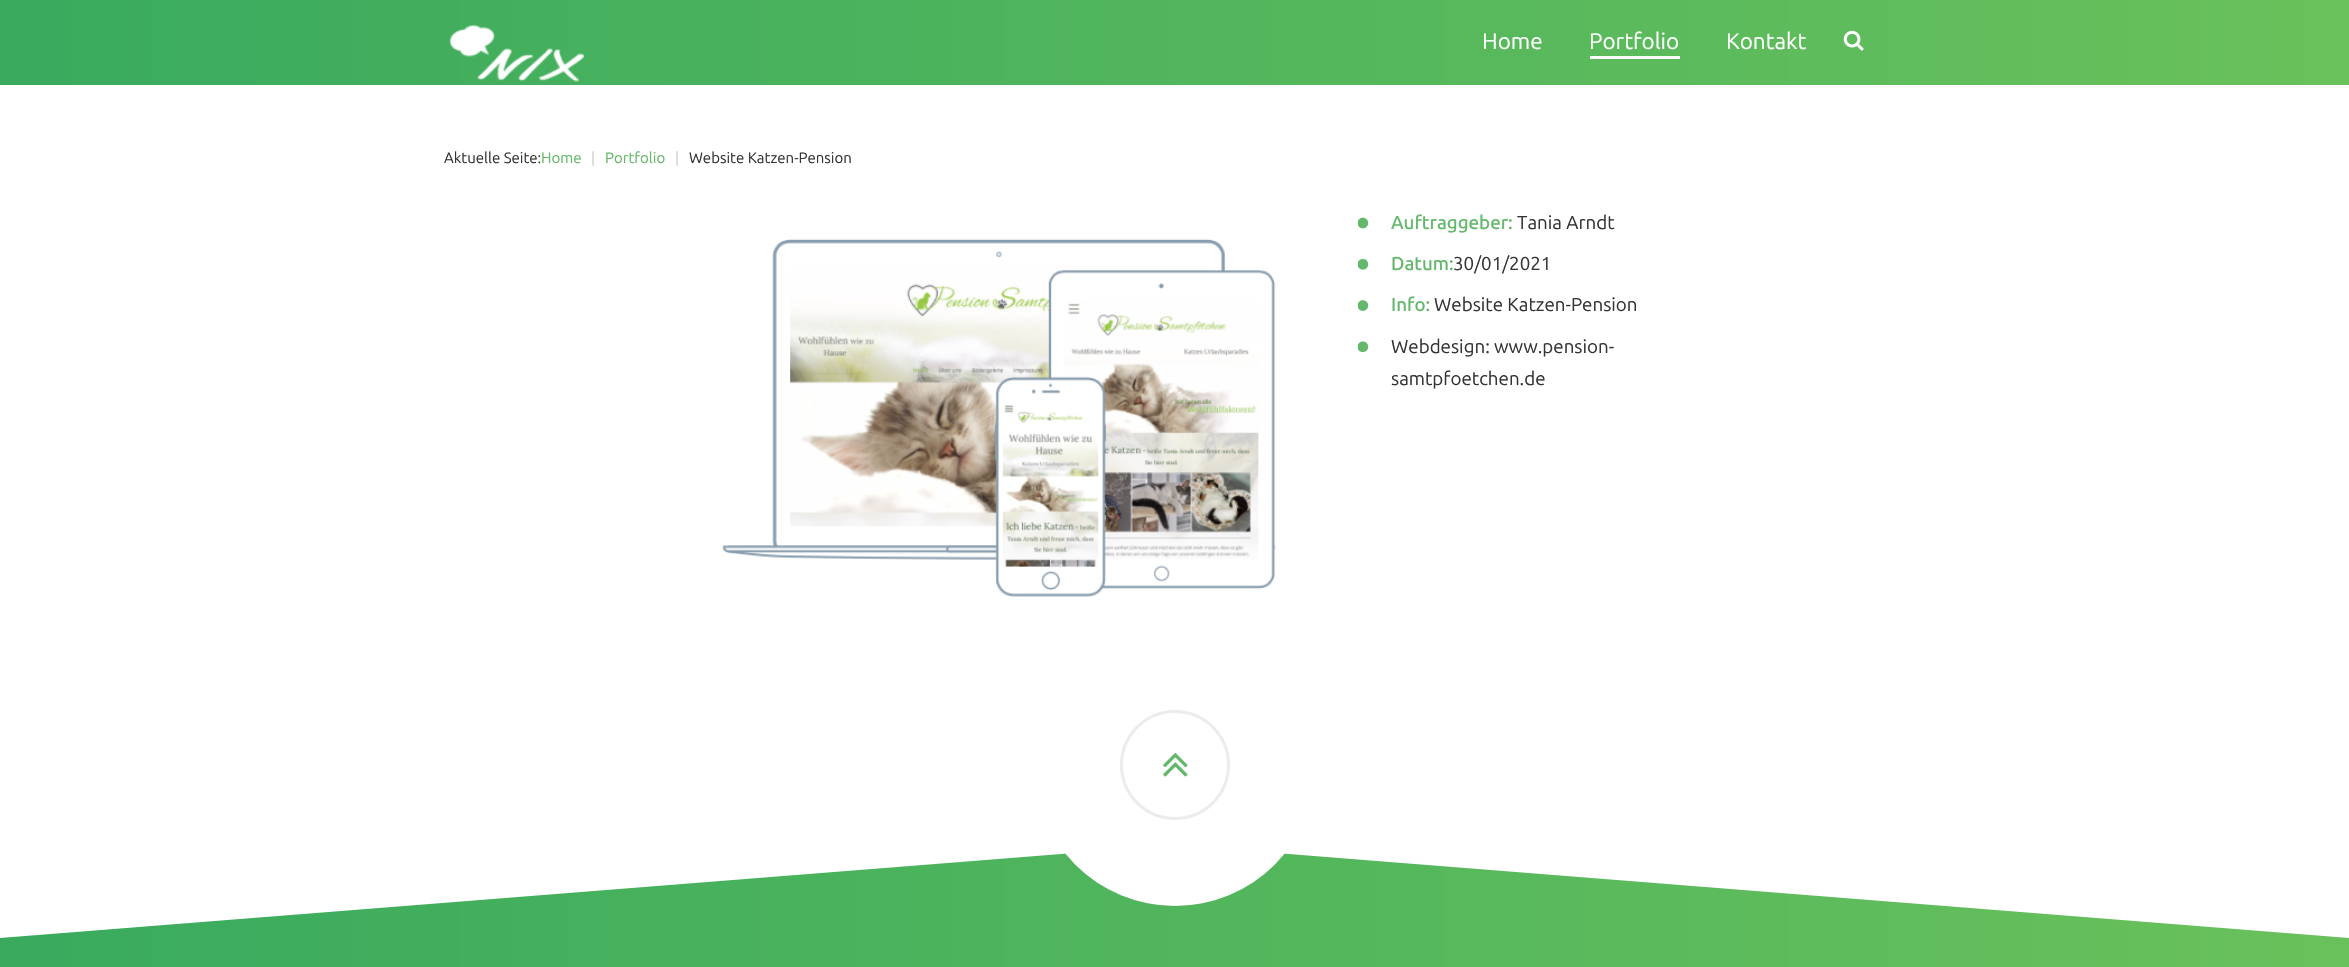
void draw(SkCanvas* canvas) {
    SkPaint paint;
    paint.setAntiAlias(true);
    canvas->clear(0xFFFFFFFF);
    {
        const SkColor colors[] = {0xFF39AA5E, 0xFF69C15B};
        const float stops[] = {0, 1};
        const SkPoint ends[] = {{0, 43}, {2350, 42}};
        paint.setShader(SkGradientShader::MakeLinear(ends, colors, stops, 2, SkTileMode::kClamp));
        paint.setAlpha(255);
    }
    canvas->drawRect(SkRect::MakeXYWH(0, 0, 2349, 85), paint);
    canvas->drawImageRect(SkImages::DeferredFromEncodedData(SkData::MakeFromFileName("img1.png")), SkRect::MakeXYWH(449, 24, 135, 58), SkSamplingOptions());
    SkFont font1(fontMgr->matchFamilyStyle("Ubuntu", SkFontStyle::Normal()), 22.5f);
    font1.setSubpixel(true);
    paint.setShader(nullptr);
    paint.setColor(0xFFFFFFFF);
    canvas->drawString("Home", 1482, 49, font1, paint);
    canvas->drawRect(SkRect::MakeXYWH(1590, 56, 90, 3), paint);
    canvas->drawString("Portfolio", 1589, 49, font1, paint);
    canvas->drawString("Kontakt", 1726, 49, font1, paint);
    canvas->drawImageRect(SkImages::DeferredFromEncodedData(SkData::MakeFromFileName("img2.png")), SkRect::MakeXYWH(1843, 30, 21, 21), SkSamplingOptions());
    SkFont font2(fontMgr->matchFamilyStyle("Ubuntu", SkFontStyle::Normal()), 15);
    font2.setSubpixel(true);
    paint.setColor(0xFF333333);
    canvas->drawString("Aktuelle Seite:", 444, 163, font2, paint);
    paint.setColor(0xFF63B86B);
    canvas->drawString("Home", 541, 163, font2, paint);
    paint.setColor(0xFFCCCCCC);
    canvas->drawString("|", 591, 163, font2, paint);
    paint.setColor(0xFF63B86B);
    canvas->drawString("Portfolio", 605, 163, font2, paint);
    paint.setColor(0xFFCCCCCC);
    canvas->drawString("|", 675, 163, font2, paint);
    paint.setColor(0xFF333333);
    canvas->drawString("Website Katzen-Pension", 689, 163, font2, paint);
    canvas->drawImageRect(SkImages::DeferredFromEncodedData(SkData::MakeFromFileName("img3.png")), SkRect::MakeXYWH(722, 239, 554, 358), SkSamplingOptions());
    canvas->drawImageRect(SkImages::DeferredFromEncodedData(SkData::MakeFromFileName("img4.png")), SkRect::MakeXYWH(1358, 217, 11, 12), SkSamplingOptions());
    SkFont font3(fontMgr->matchFamilyStyle("Ubuntu", SkFontStyle(500, SkFontStyle::kNormal_Width, SkFontStyle::kUpright_Slant)), 18.75f);
    font3.setSubpixel(true);
    paint.setColor(0xFF63B86B);
    canvas->drawString("Auftraggeber:", 1391, 229, font3, paint);
    SkFont font4(fontMgr->matchFamilyStyle("Ubuntu", SkFontStyle::Normal()), 18.75f);
    font4.setSubpixel(true);
    paint.setColor(0xFF333333);
    canvas->drawString("Tania Arndt", 1517, 229, font4, paint);
    canvas->drawImageRect(SkImages::DeferredFromEncodedData(SkData::MakeFromFileName("img5.png")), SkRect::MakeXYWH(1358, 258, 11, 12), SkSamplingOptions());
    paint.setColor(0xFF63B86B);
    canvas->drawString("Datum:", 1391, 270, font3, paint);
    paint.setColor(0xFF333333);
    canvas->drawString("30/01/2021", 1453, 270, font4, paint);
    canvas->drawImageRect(SkImages::DeferredFromEncodedData(SkData::MakeFromFileName("img6.png")), SkRect::MakeXYWH(1358, 300, 11, 11), SkSamplingOptions());
    paint.setColor(0xFF63B86B);
    canvas->drawString("Info:", 1391, 311, font3, paint);
    paint.setColor(0xFF333333);
    canvas->drawString("Website Katzen-Pension", 1434, 311, font4, paint);
    canvas->drawImageRect(SkImages::DeferredFromEncodedData(SkData::MakeFromFileName("img7.png")), SkRect::MakeXYWH(1358, 341, 11, 12), SkSamplingOptions());
    canvas->drawString("Webdesign: www.pension-", 1391, 353, font4, paint);
    canvas->drawString("samtpfoetchen.de", 1391, 385, font4, paint);
    {
        const SkColor colors[] = {0xFF39AA5E, 0xFF69C15B};
        const float stops[] = {0, 1};
        const SkPoint ends[] = {{0, 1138}, {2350, 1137}};
        paint.setShader(SkGradientShader::MakeLinear(ends, colors, stops, 2, SkTileMode::kClamp));
        paint.setAlpha(255);
    }
    canvas->drawRect(SkRect::MakeXYWH(0, 853, 2349, 114), paint);
    paint.setShader(nullptr);
    paint.setColor(0xFFFFFFFF);
    canvas->drawPath(SkPathBuilder().moveTo(0, 844).lineTo(1175, 751).lineTo(1175, 845).lineTo(0, 938).close().detach(), paint);
    canvas->drawPath(SkPathBuilder().moveTo(1175, 751).lineTo(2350, 844).lineTo(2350, 938).lineTo(1175, 845).close().detach(), paint);
    canvas->drawCircle(1175, 765, 141, paint);
    paint.setStyle(SkPaint::kStroke_Style);
    paint.setStrokeWidth(3);
    paint.setColor(0xFFECECEC);
    canvas->drawCircle(1175, 765, 53.5f, paint);
    canvas->drawImageRect(SkImages::DeferredFromEncodedData(SkData::MakeFromFileName("img8.png")), SkRect::MakeXYWH(1163, 753, 25, 24), SkSamplingOptions());
}
